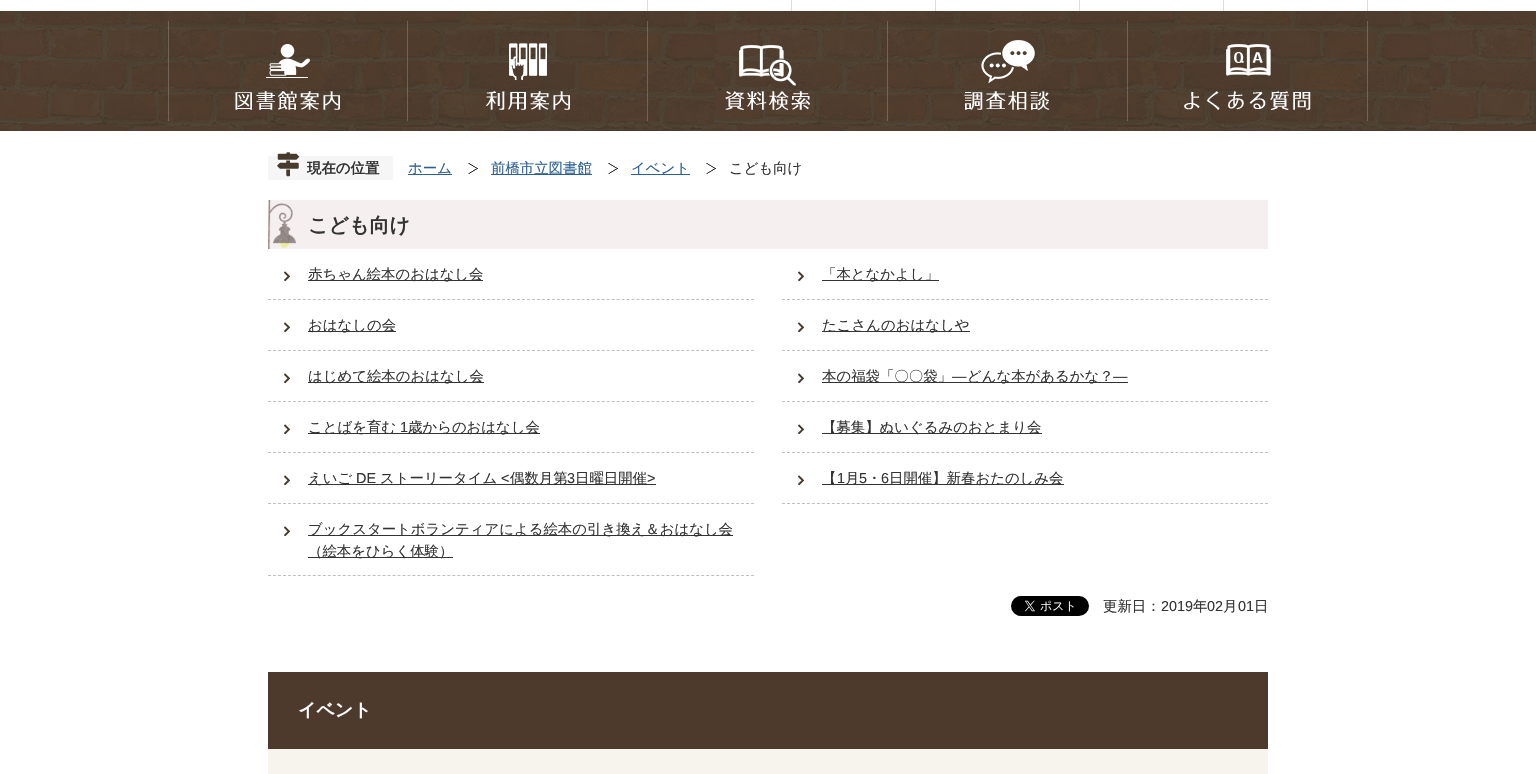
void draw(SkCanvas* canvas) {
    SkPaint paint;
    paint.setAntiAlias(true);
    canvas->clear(0xFFFFFFFF);
    paint.setColor(0xFFDEDBDB);
    canvas->drawRect(SkRect::MakeXYWH(647, 0, 1, 11), paint);
    canvas->drawRect(SkRect::MakeXYWH(791, 0, 1, 11), paint);
    canvas->drawRect(SkRect::MakeXYWH(935, 0, 1, 11), paint);
    canvas->drawRect(SkRect::MakeXYWH(1079, 0, 1, 11), paint);
    canvas->drawRect(SkRect::MakeXYWH(1367, 0, 1, 11), paint);
    canvas->drawRect(SkRect::MakeXYWH(1223, 0, 1, 11), paint);
    canvas->drawImageRect(SkImages::DeferredFromEncodedData(SkData::MakeFromFileName("img1.png")), SkRect::MakeXYWH(0, 11, 1536, 120), SkSamplingOptions());
    paint.setColor(0x33FFFFFF);
    canvas->drawRect(SkRect::MakeXYWH(407, 21, 1, 100), paint);
    canvas->drawRect(SkRect::MakeXYWH(168, 21, 1, 100), paint);
    canvas->drawImageRect(SkImages::DeferredFromEncodedData(SkData::MakeFromFileName("img2.png")), SkRect::MakeXYWH(235, 44, 105, 66), SkSamplingOptions());
    canvas->drawRect(SkRect::MakeXYWH(647, 21, 1, 100), paint);
    canvas->drawImageRect(SkImages::DeferredFromEncodedData(SkData::MakeFromFileName("img3.png")), SkRect::MakeXYWH(486, 43, 84, 67), SkSamplingOptions());
    canvas->drawRect(SkRect::MakeXYWH(887, 21, 1, 100), paint);
    canvas->drawImageRect(SkImages::DeferredFromEncodedData(SkData::MakeFromFileName("img4.png")), SkRect::MakeXYWH(725, 45, 85, 65), SkSamplingOptions());
    canvas->drawRect(SkRect::MakeXYWH(1127, 21, 1, 100), paint);
    canvas->drawImageRect(SkImages::DeferredFromEncodedData(SkData::MakeFromFileName("img5.png")), SkRect::MakeXYWH(964, 40, 86, 70), SkSamplingOptions());
    canvas->drawRect(SkRect::MakeXYWH(1367, 21, 1, 100), paint);
    canvas->drawImageRect(SkImages::DeferredFromEncodedData(SkData::MakeFromFileName("img6.png")), SkRect::MakeXYWH(1184, 44, 127, 66), SkSamplingOptions());
    paint.setColor(0xFFF7F6F6);
    canvas->drawRect(SkRect::MakeXYWH(268, 156, 125, 24), paint);
    canvas->drawImageRect(SkImages::DeferredFromEncodedData(SkData::MakeFromFileName("img7.png")), SkRect::MakeXYWH(277, 152, 23, 25), SkSamplingOptions());
    SkFont font1(fontMgr->matchFamilyStyle("WenQuanYi Zen Hei", SkFontStyle::Bold()), 14.4f);
    font1.setSubpixel(true);
    paint.setColor(0xFF333333);
    canvas->drawString("現在の位置", 307, 173, font1, paint);
    paint.setColor(0xFF2D5F92);
    canvas->drawRect(SkRect::MakeXYWH(408, 174, 44, 1), paint);
    SkFont font2(fontMgr->matchFamilyStyle("WenQuanYi Zen Hei", SkFontStyle(500, SkFontStyle::kNormal_Width, SkFontStyle::kUpright_Slant)), 14.4f);
    font2.setSubpixel(true);
    canvas->drawString("ホーム", 408, 173, font2, paint);
    canvas->drawImageRect(SkImages::DeferredFromEncodedData(SkData::MakeFromFileName("img8.png")), SkRect::MakeXYWH(468, 163, 10, 11), SkSamplingOptions());
    canvas->drawRect(SkRect::MakeXYWH(491, 174, 101, 1), paint);
    canvas->drawString("前橋市立図書館", 491, 173, font2, paint);
    canvas->drawImageRect(SkImages::DeferredFromEncodedData(SkData::MakeFromFileName("img8.png")), SkRect::MakeXYWH(608, 163, 10, 11), SkSamplingOptions());
    canvas->drawRect(SkRect::MakeXYWH(631, 174, 59, 1), paint);
    canvas->drawString("イベント", 631, 173, font2, paint);
    canvas->drawImageRect(SkImages::DeferredFromEncodedData(SkData::MakeFromFileName("img8.png")), SkRect::MakeXYWH(706, 163, 10, 11), SkSamplingOptions());
    paint.setColor(0xFF333333);
    canvas->drawString("こども向け", 729, 173, font2, paint);
    paint.setColor(0xFFF5F0EF);
    canvas->drawRect(SkRect::MakeXYWH(268, 200, 1000, 49), paint);
    canvas->drawImageRect(SkImages::DeferredFromEncodedData(SkData::MakeFromFileName("img9.png")), SkRect::MakeXYWH(268, 200, 28, 49), SkSamplingOptions());
    SkFont font3(fontMgr->matchFamilyStyle("WenQuanYi Zen Hei", SkFontStyle::Bold()), 20);
    font3.setSubpixel(true);
    paint.setColor(0xFF333333);
    canvas->drawString("こども向け", 308, 232, font3, paint);
    canvas->drawImageRect(SkImages::DeferredFromEncodedData(SkData::MakeFromFileName("img10.png")), SkRect::MakeXYWH(284, 271, 6, 11), SkSamplingOptions());
    paint.setStyle(SkPaint::kStroke_Style);
    paint.setStrokeWidth(1);
    paint.setColor(0xFFBFBFBF);
    paint.setPathEffect(SkDashPathEffect::Make({{3, 1.98f}}, 0));
    canvas->drawPath(SkPathBuilder().moveTo(268, 299.5f).lineTo(754, 299.5f).detach(), paint);
    paint.setPathEffect(nullptr);
    paint.setStyle(SkPaint::kFill_Style);
    paint.setColor(0xFF333333);
    canvas->drawRect(SkRect::MakeXYWH(308, 280, 175, 1), paint);
    canvas->drawString("赤ちゃん絵本のおはなし会", 308, 279, font2, paint);
    canvas->drawImageRect(SkImages::DeferredFromEncodedData(SkData::MakeFromFileName("img10.png")), SkRect::MakeXYWH(798, 271, 6, 11), SkSamplingOptions());
    paint.setStyle(SkPaint::kStroke_Style);
    paint.setColor(0xFFBFBFBF);
    paint.setPathEffect(SkDashPathEffect::Make({{3, 1.98f}}, 0));
    canvas->drawPath(SkPathBuilder().moveTo(782, 299.5f).lineTo(1268, 299.5f).detach(), paint);
    paint.setPathEffect(nullptr);
    paint.setStyle(SkPaint::kFill_Style);
    paint.setColor(0xFF333333);
    canvas->drawRect(SkRect::MakeXYWH(822, 280, 117, 1), paint);
    canvas->drawString("「本となかよし」", 822, 279, font2, paint);
    canvas->drawImageRect(SkImages::DeferredFromEncodedData(SkData::MakeFromFileName("img10.png")), SkRect::MakeXYWH(284, 322, 6, 11), SkSamplingOptions());
    paint.setStyle(SkPaint::kStroke_Style);
    paint.setColor(0xFFBFBFBF);
    paint.setPathEffect(SkDashPathEffect::Make({{3, 1.98f}}, 0));
    canvas->drawPath(SkPathBuilder().moveTo(268, 350.5f).lineTo(754, 350.5f).detach(), paint);
    paint.setPathEffect(nullptr);
    paint.setStyle(SkPaint::kFill_Style);
    paint.setColor(0xFF333333);
    canvas->drawRect(SkRect::MakeXYWH(308, 331, 88, 1), paint);
    canvas->drawString("おはなしの会", 308, 330, font2, paint);
    canvas->drawImageRect(SkImages::DeferredFromEncodedData(SkData::MakeFromFileName("img10.png")), SkRect::MakeXYWH(798, 322, 6, 11), SkSamplingOptions());
    paint.setStyle(SkPaint::kStroke_Style);
    paint.setColor(0xFFBFBFBF);
    paint.setPathEffect(SkDashPathEffect::Make({{3, 1.98f}}, 0));
    canvas->drawPath(SkPathBuilder().moveTo(782, 350.5f).lineTo(1268, 350.5f).detach(), paint);
    paint.setPathEffect(nullptr);
    paint.setStyle(SkPaint::kFill_Style);
    paint.setColor(0xFF333333);
    canvas->drawRect(SkRect::MakeXYWH(822, 331, 148, 1), paint);
    canvas->drawString("たこさんのおはなしや", 822, 330, font2, paint);
    canvas->drawImageRect(SkImages::DeferredFromEncodedData(SkData::MakeFromFileName("img10.png")), SkRect::MakeXYWH(284, 373, 6, 11), SkSamplingOptions());
    paint.setStyle(SkPaint::kStroke_Style);
    paint.setColor(0xFFBFBFBF);
    paint.setPathEffect(SkDashPathEffect::Make({{3, 1.98f}}, 0));
    canvas->drawPath(SkPathBuilder().moveTo(268, 401.5f).lineTo(754, 401.5f).detach(), paint);
    paint.setPathEffect(nullptr);
    paint.setStyle(SkPaint::kFill_Style);
    paint.setColor(0xFF333333);
    canvas->drawRect(SkRect::MakeXYWH(308, 382, 176, 1), paint);
    canvas->drawString("はじめて絵本のおはなし会", 308, 381, font2, paint);
    canvas->drawImageRect(SkImages::DeferredFromEncodedData(SkData::MakeFromFileName("img10.png")), SkRect::MakeXYWH(798, 373, 6, 11), SkSamplingOptions());
    paint.setStyle(SkPaint::kStroke_Style);
    paint.setColor(0xFFBFBFBF);
    paint.setPathEffect(SkDashPathEffect::Make({{3, 1.98f}}, 0));
    canvas->drawPath(SkPathBuilder().moveTo(782, 401.5f).lineTo(1268, 401.5f).detach(), paint);
    paint.setPathEffect(nullptr);
    paint.setStyle(SkPaint::kFill_Style);
    paint.setColor(0xFF333333);
    canvas->drawRect(SkRect::MakeXYWH(822, 382, 306, 1), paint);
    canvas->drawString("本の福袋「〇〇袋」", 822, 381, font2, paint);
    SkFont font4(fontMgr->matchFamilyStyle("Liberation Sans", SkFontStyle::Normal()), 14.4f);
    font4.setSubpixel(true);
    canvas->drawString("―", 952, 381, font4, paint);
    canvas->drawString("どんな本があるかな？", 967, 381, font2, paint);
    canvas->drawString("―", 1113, 381, font4, paint);
    canvas->drawImageRect(SkImages::DeferredFromEncodedData(SkData::MakeFromFileName("img10.png")), SkRect::MakeXYWH(284, 424, 6, 11), SkSamplingOptions());
    paint.setStyle(SkPaint::kStroke_Style);
    paint.setColor(0xFFBFBFBF);
    paint.setPathEffect(SkDashPathEffect::Make({{3, 1.98f}}, 0));
    canvas->drawPath(SkPathBuilder().moveTo(268, 452.5f).lineTo(754, 452.5f).detach(), paint);
    paint.setPathEffect(nullptr);
    paint.setStyle(SkPaint::kFill_Style);
    paint.setColor(0xFF333333);
    canvas->drawRect(SkRect::MakeXYWH(308, 433, 232, 1), paint);
    canvas->drawString("ことばを育む", 308, 432, font2, paint);
    canvas->drawString("1", 400, 432, font4, paint);
    canvas->drawString("歳からのおはなし会", 408, 432, font2, paint);
    canvas->drawImageRect(SkImages::DeferredFromEncodedData(SkData::MakeFromFileName("img10.png")), SkRect::MakeXYWH(798, 424, 6, 11), SkSamplingOptions());
    paint.setStyle(SkPaint::kStroke_Style);
    paint.setColor(0xFFBFBFBF);
    paint.setPathEffect(SkDashPathEffect::Make({{3, 1.98f}}, 0));
    canvas->drawPath(SkPathBuilder().moveTo(782, 452.5f).lineTo(1268, 452.5f).detach(), paint);
    paint.setPathEffect(nullptr);
    paint.setStyle(SkPaint::kFill_Style);
    paint.setColor(0xFF333333);
    canvas->drawRect(SkRect::MakeXYWH(822, 433, 220, 1), paint);
    canvas->drawString("【募集】ぬいぐるみのおとまり会", 822, 432, font2, paint);
    canvas->drawImageRect(SkImages::DeferredFromEncodedData(SkData::MakeFromFileName("img10.png")), SkRect::MakeXYWH(284, 475, 6, 11), SkSamplingOptions());
    paint.setStyle(SkPaint::kStroke_Style);
    paint.setColor(0xFFBFBFBF);
    paint.setPathEffect(SkDashPathEffect::Make({{3, 1.98f}}, 0));
    canvas->drawPath(SkPathBuilder().moveTo(268, 503.5f).lineTo(754, 503.5f).detach(), paint);
    paint.setPathEffect(nullptr);
    paint.setStyle(SkPaint::kFill_Style);
    paint.setColor(0xFF333333);
    canvas->drawRect(SkRect::MakeXYWH(308, 484, 348, 1), paint);
    canvas->drawString("えいご", 308, 483, font2, paint);
    canvas->drawString("DE", 356, 483, font4, paint);
    canvas->drawString("ストーリータイム", 380, 483, font2, paint);
    canvas->drawString("<", 501, 483, font4, paint);
    canvas->drawString("偶数月第", 510, 483, font2, paint);
    canvas->drawString("3", 567, 483, font4, paint);
    canvas->drawString("日曜日開催", 575, 483, font2, paint);
    canvas->drawString(">", 647, 483, font4, paint);
    canvas->drawImageRect(SkImages::DeferredFromEncodedData(SkData::MakeFromFileName("img10.png")), SkRect::MakeXYWH(798, 475, 6, 11), SkSamplingOptions());
    paint.setStyle(SkPaint::kStroke_Style);
    paint.setColor(0xFFBFBFBF);
    paint.setPathEffect(SkDashPathEffect::Make({{3, 1.98f}}, 0));
    canvas->drawPath(SkPathBuilder().moveTo(782, 503.5f).lineTo(1268, 503.5f).detach(), paint);
    paint.setPathEffect(nullptr);
    paint.setStyle(SkPaint::kFill_Style);
    paint.setColor(0xFF333333);
    canvas->drawRect(SkRect::MakeXYWH(822, 484, 242, 1), paint);
    canvas->drawString("【", 822, 483, font2, paint);
    canvas->drawString("1", 837, 483, font4, paint);
    canvas->drawString("月", 845, 483, font2, paint);
    canvas->drawString("5", 859, 483, font4, paint);
    canvas->drawString("・", 867, 483, font2, paint);
    canvas->drawString("6", 881, 483, font4, paint);
    canvas->drawString("日開催】新春おたのしみ会", 889, 483, font2, paint);
    canvas->drawImageRect(SkImages::DeferredFromEncodedData(SkData::MakeFromFileName("img10.png")), SkRect::MakeXYWH(284, 526, 6, 11), SkSamplingOptions());
    paint.setStyle(SkPaint::kStroke_Style);
    paint.setColor(0xFFBFBFBF);
    paint.setPathEffect(SkDashPathEffect::Make({{3, 1.98f}}, 0));
    canvas->drawPath(SkPathBuilder().moveTo(268, 575.5f).lineTo(754, 575.5f).detach(), paint);
    paint.setPathEffect(nullptr);
    paint.setStyle(SkPaint::kFill_Style);
    paint.setColor(0xFF333333);
    canvas->drawRect(SkRect::MakeXYWH(308, 535, 425, 1), paint);
    canvas->drawString("ブックスタートボランティアによる絵本の引き換え＆おはなし会", 308, 534, font2, paint);
    canvas->drawRect(SkRect::MakeXYWH(308, 557, 145, 1), paint);
    canvas->drawString("（絵本をひらく体験）", 308, 556, font2, paint);
    canvas->drawImageRect(SkImages::DeferredFromEncodedData(SkData::MakeFromFileName("img11.png")), SkRect::MakeXYWH(1011, 596, 78, 20), SkSamplingOptions());
    canvas->drawString("更新日：", 1103, 611, font2, paint);
    canvas->drawString("2019", 1161, 611, font4, paint);
    canvas->drawString("年", 1193, 611, font2, paint);
    canvas->drawString("02", 1207, 611, font4, paint);
    canvas->drawString("月", 1223, 611, font2, paint);
    canvas->drawString("01", 1238, 611, font4, paint);
    canvas->drawString("日", 1254, 611, font2, paint);
    paint.setColor(0xFFF7F4EE);
    canvas->drawRect(SkRect::MakeXYWH(268, 749, 1000, 25), paint);
    paint.setColor(0xFF4D3A2C);
    canvas->drawRect(SkRect::MakeXYWH(268, 672, 1000, 77), paint);
    SkFont font5(fontMgr->matchFamilyStyle("WenQuanYi Zen Hei", SkFontStyle::Bold()), 18);
    font5.setSubpixel(true);
    paint.setColor(0xFFFFFFFF);
    canvas->drawString("イベント", 298, 716, font5, paint);
}
